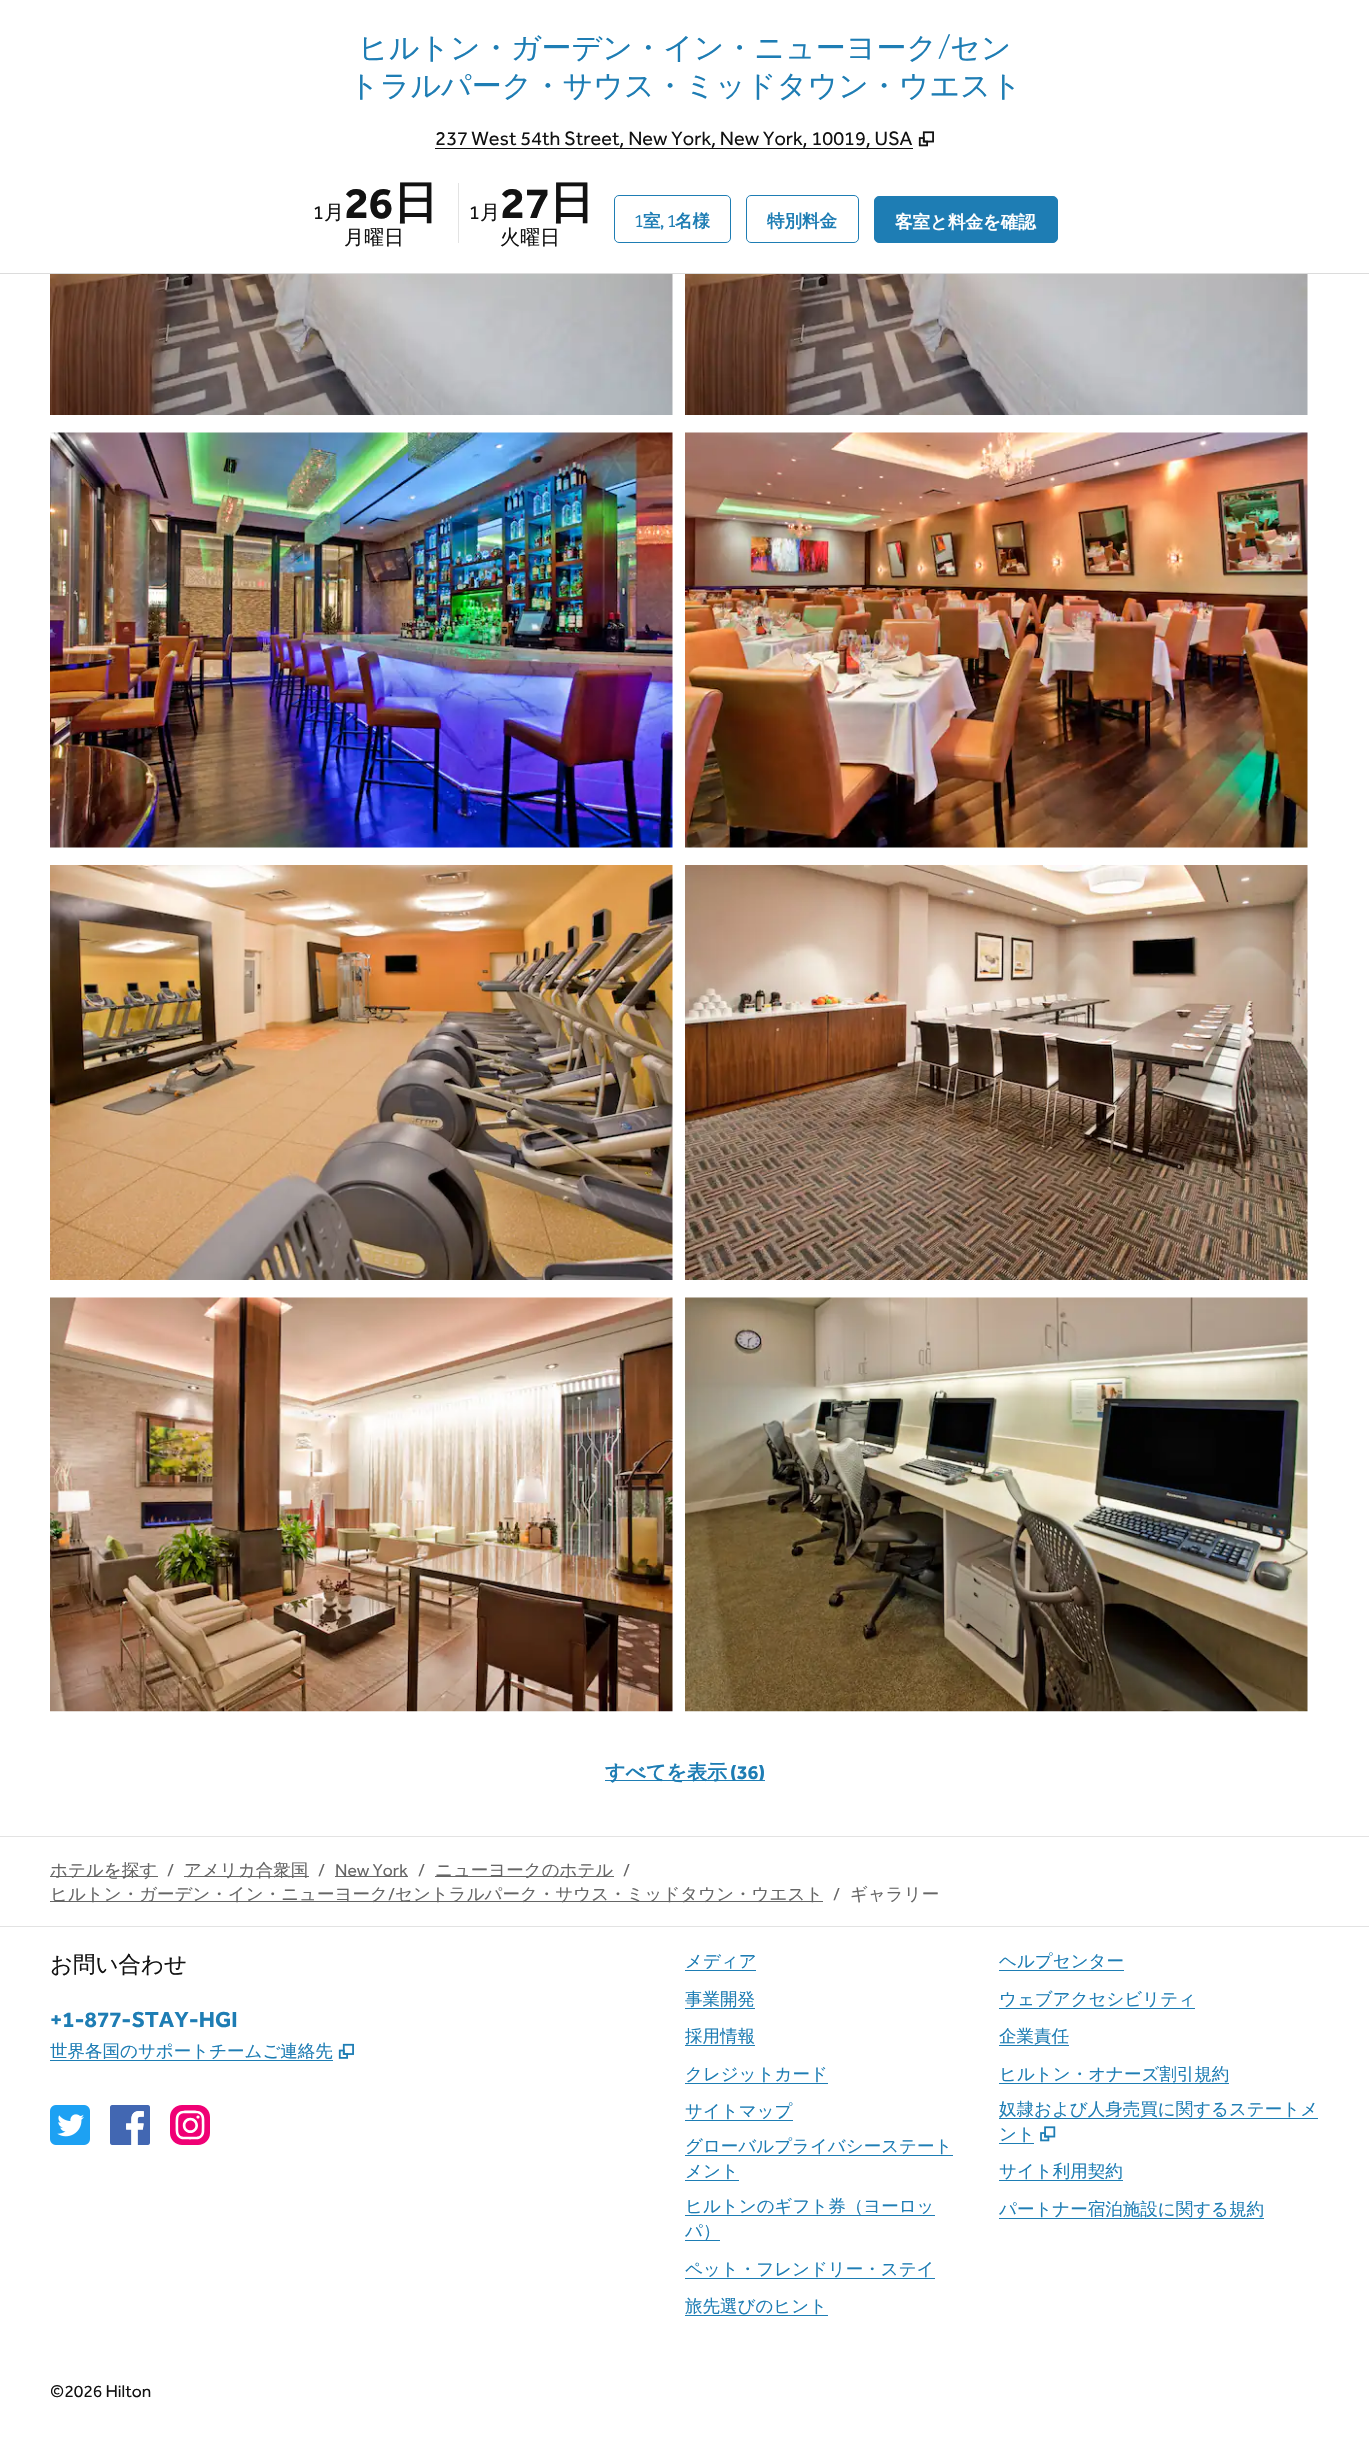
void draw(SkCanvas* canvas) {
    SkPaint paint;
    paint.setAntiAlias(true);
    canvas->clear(0xFFFFFFFF);
    paint.setColor(0xFFDCDCDC);
    canvas->drawRect(SkRect::MakeXYWH(0, 273, 1369, 1), paint);
    SkFont font1(fontMgr->matchFamilyStyle("WenQuanYi Zen Hei", SkFontStyle(500, SkFontStyle::kNormal_Width, SkFontStyle::kUpright_Slant)), 30);
    font1.setSubpixel(true);
    paint.setColor(0xFF1E7DB4);
    canvas->drawString("ヒルトン・ガーデン・イン・ニューヨーク", 358, 58, font1, paint);
    SkFont font2(fontMgr->matchFamilyStyle("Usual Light", SkFontStyle::Normal()), 30);
    font2.setSubpixel(true);
    canvas->drawString("/", 938, 58, font2, paint);
    canvas->drawString("セン", 950, 58, font1, paint);
    canvas->drawString("トラルパーク・サウス・ミッドタウン・ウエスト", 349, 96, font1, paint);
    paint.setColor(0xFF121212);
    canvas->drawRect(SkRect::MakeXYWH(435, 148, 478, 1), paint);
    SkFont font3(fontMgr->matchFamilyStyle("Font", SkFontStyle::Normal()), 20);
    font3.setSubpixel(true);
    canvas->drawString("237 West 54th Street, New York, New York, 10019, USA", 435, 145, font3, paint);
    canvas->drawImageRect(SkImages::DeferredFromEncodedData(SkData::MakeFromFileName("img1.png")), SkRect::MakeXYWH(918, 131, 16, 16), SkSamplingOptions());
    canvas->drawString("1", 313, 219, font3, paint);
    SkFont font4(fontMgr->matchFamilyStyle("WenQuanYi Zen Hei", SkFontStyle(500, SkFontStyle::kNormal_Width, SkFontStyle::kUpright_Slant)), 20);
    font4.setSubpixel(true);
    canvas->drawString("月", 324, 219, font4, paint);
    SkFont font5(fontMgr->matchFamilyStyle("Font", SkFontStyle::Bold()), 45);
    font5.setSubpixel(true);
    canvas->drawString("26", 344, 218, font5, paint);
    SkFont font6(fontMgr->matchFamilyStyle("WenQuanYi Zen Hei", SkFontStyle::Bold()), 45);
    font6.setSubpixel(true);
    canvas->drawString("日", 393, 218, font6, paint);
    canvas->drawString("月曜日", 344, 244, font4, paint);
    paint.setColor(0xFFE3E3E3);
    canvas->drawRect(SkRect::MakeXYWH(458, 183, 1, 60), paint);
    paint.setColor(0xFF121212);
    canvas->drawString("1", 469, 219, font3, paint);
    canvas->drawString("月", 480, 219, font4, paint);
    canvas->drawString("27", 500, 218, font5, paint);
    canvas->drawString("日", 549, 218, font6, paint);
    canvas->drawString("火曜日", 500, 244, font4, paint);
    paint.setStyle(SkPaint::kStroke_Style);
    paint.setStrokeWidth(1);
    paint.setColor(0xFF1E7DB4);
    canvas->drawRoundRect(SkRect::MakeXYWH(614.5f, 195.5f, 116, 47), 4.5f, 4.5f, paint);
    SkFont font7(fontMgr->matchFamilyStyle("Bree Serif", SkFontStyle::Bold()), 17.5f);
    font7.setSubpixel(true);
    paint.setStyle(SkPaint::kFill_Style);
    canvas->drawString("1", 635, 227, font7, paint);
    SkFont font8(fontMgr->matchFamilyStyle("WenQuanYi Zen Hei", SkFontStyle::Bold()), 17.5f);
    font8.setSubpixel(true);
    canvas->drawString("室", 643, 227, font8, paint);
    canvas->drawString(", 1", 660, 227, font7, paint);
    canvas->drawString("名様", 675, 227, font8, paint);
    paint.setStyle(SkPaint::kStroke_Style);
    canvas->drawRoundRect(SkRect::MakeXYWH(746.5f, 195.5f, 112, 47), 4.5f, 4.5f, paint);
    paint.setStyle(SkPaint::kFill_Style);
    canvas->drawString("特別料金", 767, 227, font8, paint);
    canvas->drawRoundRect(SkRect::MakeXYWH(874.5f, 196.5f, 183, 46), 4.5f, 4.5f, paint);
    paint.setStyle(SkPaint::kStroke_Style);
    canvas->drawRoundRect(SkRect::MakeXYWH(874.5f, 196.5f, 183, 46), 4.5f, 4.5f, paint);
    paint.setStyle(SkPaint::kFill_Style);
    paint.setColor(0xFFFFFFFF);
    canvas->drawString("客室と料金を確認", 895, 228, font8, paint);
    canvas->drawImageRect(SkImages::DeferredFromEncodedData(SkData::MakeFromFileName("img2.png")), SkRect::MakeXYWH(50, 274, 623, 141), SkSamplingOptions());
    canvas->drawImageRect(SkImages::DeferredFromEncodedData(SkData::MakeFromFileName("img3.png")), SkRect::MakeXYWH(685, 274, 623, 141), SkSamplingOptions());
    canvas->drawImageRect(SkImages::DeferredFromEncodedData(SkData::MakeFromFileName("img4.png")), SkRect::MakeXYWH(50, 432, 623, 416), SkSamplingOptions());
    canvas->drawImageRect(SkImages::DeferredFromEncodedData(SkData::MakeFromFileName("img5.png")), SkRect::MakeXYWH(685, 432, 623, 416), SkSamplingOptions());
    canvas->drawImageRect(SkImages::DeferredFromEncodedData(SkData::MakeFromFileName("img6.png")), SkRect::MakeXYWH(50, 865, 623, 415), SkSamplingOptions());
    canvas->drawImageRect(SkImages::DeferredFromEncodedData(SkData::MakeFromFileName("img7.png")), SkRect::MakeXYWH(685, 865, 623, 415), SkSamplingOptions());
    canvas->drawImageRect(SkImages::DeferredFromEncodedData(SkData::MakeFromFileName("img8.png")), SkRect::MakeXYWH(50, 1297, 623, 415), SkSamplingOptions());
    canvas->drawImageRect(SkImages::DeferredFromEncodedData(SkData::MakeFromFileName("img9.png")), SkRect::MakeXYWH(685, 1297, 623, 415), SkSamplingOptions());
    paint.setColor(0xFF1E7DB4);
    canvas->drawRect(SkRect::MakeXYWH(605, 1780, 160, 1), paint);
    SkFont font9(fontMgr->matchFamilyStyle("WenQuanYi Zen Hei", SkFontStyle::Bold()), 20);
    font9.setSubpixel(true);
    canvas->drawString("すべてを表示", 605, 1779, font9, paint);
    SkFont font10(fontMgr->matchFamilyStyle("Font", SkFontStyle::Bold()), 20);
    font10.setSubpixel(true);
    canvas->drawString("(36)", 730, 1779, font10, paint);
    paint.setColor(0xFFE3E3E3);
    canvas->drawRect(SkRect::MakeXYWH(0, 1836, 1369, 1), paint);
    paint.setColor(0xFF666666);
    canvas->drawRect(SkRect::MakeXYWH(50, 1876, 108, 1), paint);
    SkFont font11(fontMgr->matchFamilyStyle("WenQuanYi Zen Hei", SkFontStyle(500, SkFontStyle::kNormal_Width, SkFontStyle::kUpright_Slant)), 17.5f);
    font11.setSubpixel(true);
    canvas->drawString("ホテルを探す", 50, 1876, font11, paint);
    SkFont font12(fontMgr->matchFamilyStyle("Font", SkFontStyle::Normal()), 17.5f);
    font12.setSubpixel(true);
    canvas->drawString("/", 167, 1876, font12, paint);
    canvas->drawRect(SkRect::MakeXYWH(184, 1876, 125, 1), paint);
    canvas->drawString("アメリカ合衆国", 184, 1876, font11, paint);
    canvas->drawString("/", 318, 1876, font12, paint);
    canvas->drawRect(SkRect::MakeXYWH(335, 1876, 73, 1), paint);
    canvas->drawString("New York", 335, 1876, font12, paint);
    canvas->drawString("/", 418, 1876, font12, paint);
    canvas->drawRect(SkRect::MakeXYWH(435, 1876, 179, 1), paint);
    canvas->drawString("ニューヨークのホテル", 435, 1876, font11, paint);
    canvas->drawString("/", 623, 1876, font12, paint);
    canvas->drawRect(SkRect::MakeXYWH(50, 1901, 773, 1), paint);
    canvas->drawString("ヒルトン・ガーデン・イン・ニューヨーク", 50, 1900, font11, paint);
    canvas->drawString("/", 388, 1900, font12, paint);
    canvas->drawString("セントラルパーク・サウス・ミッドタウン・ウエスト", 395, 1900, font11, paint);
    canvas->drawString("/", 833, 1900, font12, paint);
    canvas->drawString("ギャラリー", 850, 1900, font11, paint);
    paint.setColor(0xFFE3E3E3);
    canvas->drawRect(SkRect::MakeXYWH(0, 1926, 1369, 1), paint);
    SkFont font13(fontMgr->matchFamilyStyle("WenQuanYi Zen Hei", SkFontStyle(500, SkFontStyle::kNormal_Width, SkFontStyle::kUpright_Slant)), 22.5f);
    font13.setSubpixel(true);
    paint.setColor(0xFF121212);
    canvas->drawString("お問い合わせ", 50, 1972, font13, paint);
    SkFont font14(fontMgr->matchFamilyStyle("Font", SkFontStyle::Bold()), 22.5f);
    font14.setSubpixel(true);
    paint.setColor(0xFF1E7DB4);
    canvas->drawString("+1-877-STAY-HGI", 50, 2027, font14, paint);
    canvas->drawString("世界各国のサポートチームご連絡先", 50, 2057, font11, paint);
    canvas->drawRect(SkRect::MakeXYWH(50, 2060, 283, 1), paint);
    canvas->drawImageRect(SkImages::DeferredFromEncodedData(SkData::MakeFromFileName("img10.png")), SkRect::MakeXYWH(338, 2043, 16, 16), SkSamplingOptions());
    canvas->drawImageRect(SkImages::DeferredFromEncodedData(SkData::MakeFromFileName("img11.png")), SkRect::MakeXYWH(50, 2105, 40, 40), SkSamplingOptions());
    canvas->drawImageRect(SkImages::DeferredFromEncodedData(SkData::MakeFromFileName("img12.png")), SkRect::MakeXYWH(110, 2105, 40, 40), SkSamplingOptions());
    canvas->drawImageRect(SkImages::DeferredFromEncodedData(SkData::MakeFromFileName("img13.png")), SkRect::MakeXYWH(170, 2105, 40, 40), SkSamplingOptions());
    canvas->drawString("メディア", 685, 1967, font11, paint);
    canvas->drawRect(SkRect::MakeXYWH(685, 1970, 71, 1), paint);
    canvas->drawString("事業開発", 685, 2005, font11, paint);
    canvas->drawRect(SkRect::MakeXYWH(685, 2008, 70, 1), paint);
    canvas->drawString("採用情報", 685, 2042, font11, paint);
    canvas->drawRect(SkRect::MakeXYWH(685, 2045, 70, 1), paint);
    canvas->drawString("クレジットカード", 685, 2080, font11, paint);
    canvas->drawRect(SkRect::MakeXYWH(685, 2083, 143, 1), paint);
    canvas->drawString("サイトマップ", 685, 2117, font11, paint);
    canvas->drawRect(SkRect::MakeXYWH(685, 2120, 108, 1), paint);
    canvas->drawString("グローバルプライバシーステート", 685, 2152, font11, paint);
    canvas->drawRect(SkRect::MakeXYWH(685, 2155, 268, 1), paint);
    canvas->drawString("メント", 685, 2177, font11, paint);
    canvas->drawRect(SkRect::MakeXYWH(685, 2180, 54, 1), paint);
    canvas->drawString("ヒルトンのギフト券（ヨーロッ", 685, 2212, font11, paint);
    canvas->drawRect(SkRect::MakeXYWH(685, 2215, 250, 1), paint);
    canvas->drawString("パ）", 685, 2237, font11, paint);
    canvas->drawRect(SkRect::MakeXYWH(685, 2240, 35, 1), paint);
    canvas->drawString("ペット・フレンドリー・ステイ", 685, 2275, font11, paint);
    canvas->drawRect(SkRect::MakeXYWH(685, 2278, 250, 1), paint);
    canvas->drawString("旅先選びのヒント", 685, 2312, font11, paint);
    canvas->drawRect(SkRect::MakeXYWH(685, 2315, 143, 1), paint);
    canvas->drawString("ヘルプセンター", 999, 1967, font11, paint);
    canvas->drawRect(SkRect::MakeXYWH(999, 1970, 125, 1), paint);
    canvas->drawString("ウェブアクセシビリティ", 999, 2005, font11, paint);
    canvas->drawRect(SkRect::MakeXYWH(999, 2008, 196, 1), paint);
    canvas->drawString("企業責任", 999, 2042, font11, paint);
    canvas->drawRect(SkRect::MakeXYWH(999, 2045, 70, 1), paint);
    canvas->drawString("ヒルトン・オナーズ割引規約", 999, 2080, font11, paint);
    canvas->drawRect(SkRect::MakeXYWH(999, 2083, 230, 1), paint);
    canvas->drawRect(SkRect::MakeXYWH(999, 2118, 319, 1), paint);
    canvas->drawString("奴隷および人身売買に関するステートメ", 999, 2115, font11, paint);
    canvas->drawString("ント", 999, 2140, font11, paint);
    canvas->drawRect(SkRect::MakeXYWH(999, 2143, 35, 1), paint);
    canvas->drawImageRect(SkImages::DeferredFromEncodedData(SkData::MakeFromFileName("img14.png")), SkRect::MakeXYWH(1040, 2126, 16, 16), SkSamplingOptions());
    canvas->drawString("サイト利用契約", 999, 2177, font11, paint);
    canvas->drawRect(SkRect::MakeXYWH(999, 2180, 124, 1), paint);
    canvas->drawRect(SkRect::MakeXYWH(999, 2218, 265, 1), paint);
    canvas->drawString("パートナー宿泊施設に関する規約", 999, 2215, font11, paint);
    paint.setColor(0xFF121212);
    canvas->drawString("©2026 Hilton", 50, 2397, font12, paint);
}
